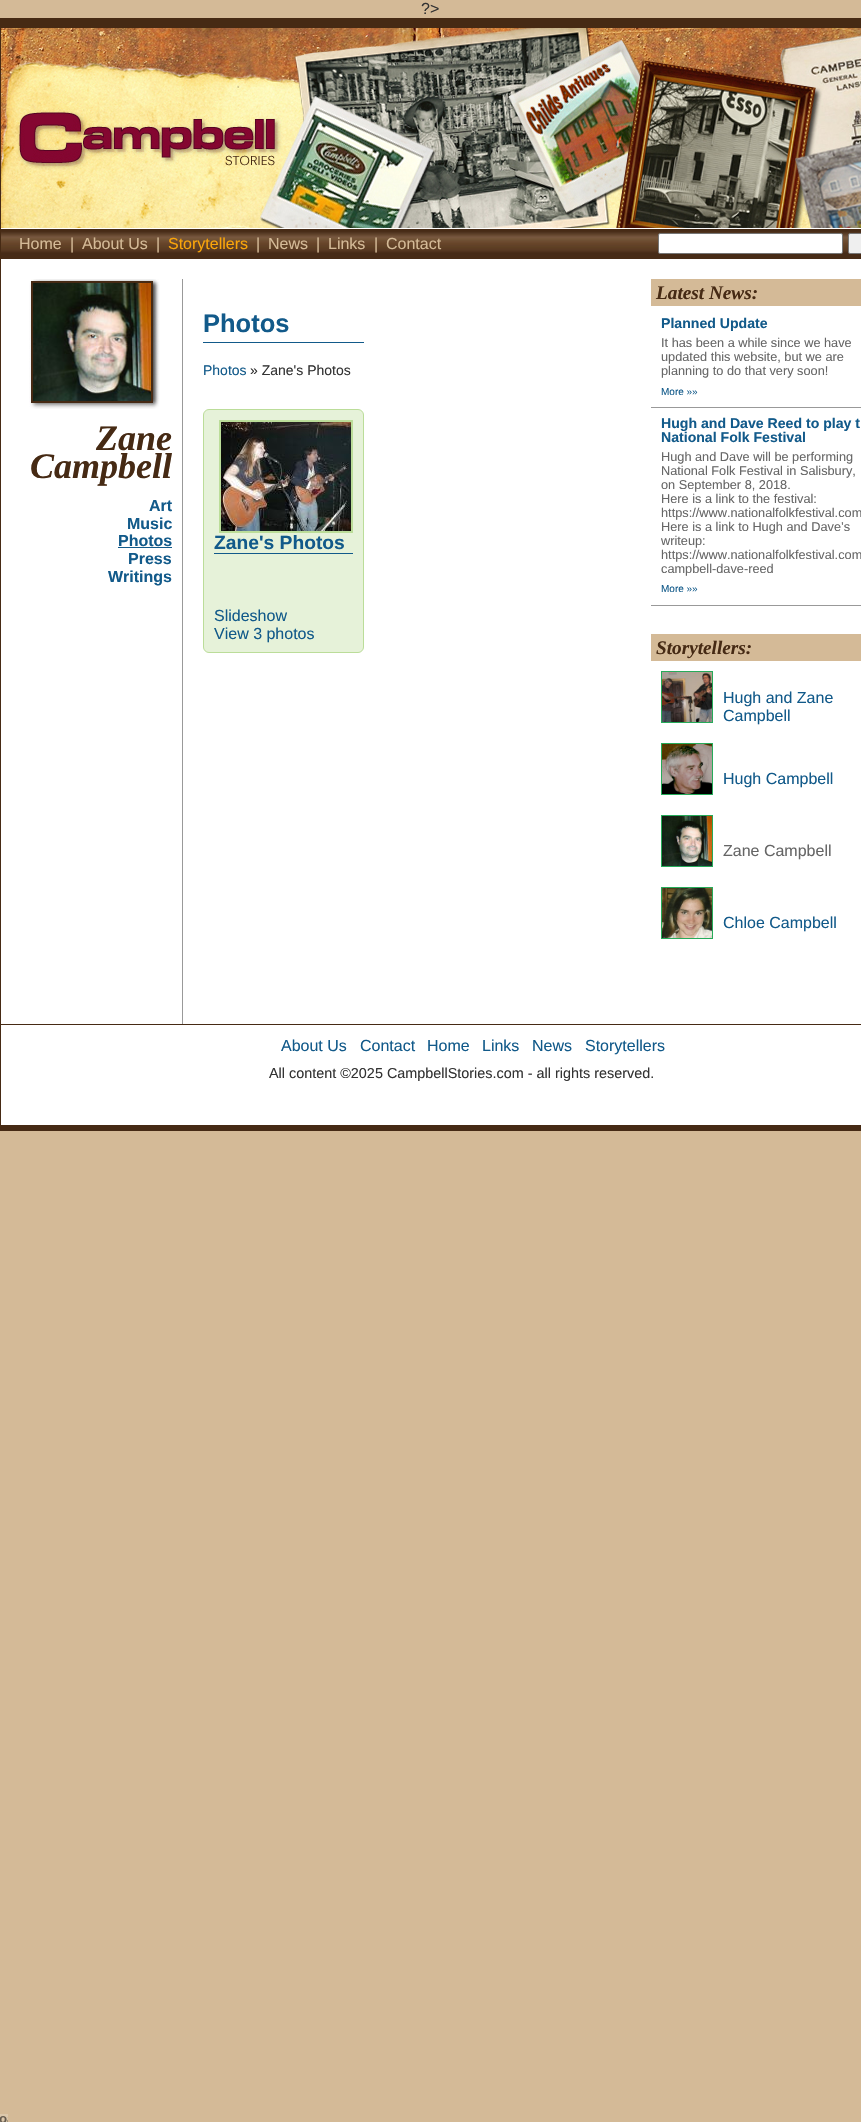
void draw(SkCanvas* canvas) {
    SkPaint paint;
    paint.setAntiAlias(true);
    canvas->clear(0xFFD4BA97);
    SkFont font1(fontMgr->matchFamilyStyle("Liberation Sans", SkFontStyle::Normal()), 16);
    font1.setSubpixel(true);
    paint.setColor(0xFF333333);
    canvas->drawString("?>", 421, 14, font1, paint);
    paint.setColor(0xFFFFFFFF);
    canvas->drawRect(SkRect::MakeXYWH(1, 228, 860, 897), paint);
    paint.setColor(0xFF462A14);
    canvas->drawRect(SkRect::MakeXYWH(1, 18, 860, 10), paint);
    canvas->drawRect(SkRect::MakeXYWH(0, 1130, 861, 1), paint);
    canvas->drawRect(SkRect::MakeXYWH(0, 18, 1, 1113), paint);
    canvas->drawImageRect(SkImages::DeferredFromEncodedData(SkData::MakeFromFileName("img1.png")), SkRect::MakeXYWH(1, 28, 860, 200), SkSamplingOptions());
    canvas->drawImageRect(SkImages::DeferredFromEncodedData(SkData::MakeFromFileName("img2.png")), SkRect::MakeXYWH(1, 229, 860, 30), SkSamplingOptions());
    paint.setColor(0xFFD4BA97);
    canvas->drawString("Home", 19, 249, font1, paint);
    canvas->drawString("|", 70, 249, font1, paint);
    canvas->drawString("About Us", 82, 249, font1, paint);
    canvas->drawString("|", 156, 249, font1, paint);
    paint.setColor(0xFFFAA50A);
    canvas->drawString("Storytellers", 168, 249, font1, paint);
    paint.setColor(0xFFD4BA97);
    canvas->drawString("|", 256, 249, font1, paint);
    canvas->drawString("News", 268, 249, font1, paint);
    canvas->drawString("|", 316, 249, font1, paint);
    canvas->drawString("Links", 328, 249, font1, paint);
    canvas->drawString("|", 374, 249, font1, paint);
    canvas->drawString("Contact", 386, 249, font1, paint);
    paint.setColor(0xFFFFFFFF);
    canvas->drawRoundRect(SkRect::MakeXYWH(658.5f, 233.5f, 184, 20), 1.5f, 1.5f, paint);
    paint.setStyle(SkPaint::kStroke_Style);
    paint.setStrokeWidth(1);
    paint.setColor(0xFF767676);
    canvas->drawRoundRect(SkRect::MakeXYWH(658.5f, 233.5f, 184, 20), 1.5f, 1.5f, paint);
    paint.setStyle(SkPaint::kFill_Style);
    paint.setColor(0xFFEFEFEF);
    canvas->drawRoundRect(SkRect::MakeXYWH(848.5f, 233.5f, 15, 20), 1.5f, 1.5f, paint);
    paint.setStyle(SkPaint::kStroke_Style);
    paint.setColor(0xFF767676);
    canvas->drawRoundRect(SkRect::MakeXYWH(848.5f, 233.5f, 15, 20), 1.5f, 1.5f, paint);
    canvas->drawImageRect(SkImages::DeferredFromEncodedData(SkData::MakeFromFileName("img3.png")), SkRect::MakeXYWH(29, 279, 131, 130), SkSamplingOptions());
    paint.setStyle(SkPaint::kFill_Style);
    paint.setColor(0xFF999999);
    canvas->drawRect(SkRect::MakeXYWH(182, 279, 1, 745), paint);
    paint.setStyle(SkPaint::kStroke_Style);
    paint.setStrokeWidth(2);
    paint.setColor(0xFF462A14);
    canvas->drawRect(SkRect::MakeXYWH(32, 282, 120, 120), paint);
    canvas->drawImageRect(SkImages::DeferredFromEncodedData(SkData::MakeFromFileName("img4.png")), SkRect::MakeXYWH(33, 283, 118, 118), SkSamplingOptions());
    SkFont font2(fontMgr->matchFamilyStyle("Liberation Serif", SkFontStyle::BoldItalic()), 36);
    font2.setSubpixel(true);
    paint.setStyle(SkPaint::kFill_Style);
    canvas->drawString("Zane", 96, 450, font2, paint);
    canvas->drawString("Campbell", 30, 478, font2, paint);
    SkFont font3(fontMgr->matchFamilyStyle("Liberation Sans", SkFontStyle::Bold()), 16);
    font3.setSubpixel(true);
    paint.setColor(0xFF125A8A);
    canvas->drawString("Art", 149, 511, font3, paint);
    canvas->drawString("Music", 127, 529, font3, paint);
    canvas->drawString("Photos", 118, 546, font3, paint);
    canvas->drawRect(SkRect::MakeXYWH(118, 547, 54, 1), paint);
    canvas->drawString("Press", 128, 564, font3, paint);
    canvas->drawString("Writings", 108, 582, font3, paint);
    canvas->drawRect(SkRect::MakeXYWH(203, 342, 161, 1), paint);
    SkFont font4(fontMgr->matchFamilyStyle("Liberation Sans", SkFontStyle::Bold()), 25.5f);
    font4.setSubpixel(true);
    canvas->drawString("Photos", 203, 332, font4, paint);
    SkFont font5(fontMgr->matchFamilyStyle("Liberation Sans", SkFontStyle::Normal()), 14);
    font5.setSubpixel(true);
    canvas->drawString("Photos", 203, 375, font5, paint);
    paint.setColor(0xFF333333);
    canvas->drawString("» Zane's Photos", 250, 375, font5, paint);
    paint.setColor(0xFFE6F2D9);
    canvas->drawRoundRect(SkRect::MakeXYWH(203.5f, 409.5f, 160, 243), 5.5f, 5.5f, paint);
    paint.setStyle(SkPaint::kStroke_Style);
    paint.setStrokeWidth(1);
    paint.setColor(0xFFBBDD99);
    canvas->drawRoundRect(SkRect::MakeXYWH(203.5f, 409.5f, 160, 243), 5.5f, 5.5f, paint);
    paint.setStrokeWidth(2);
    canvas->drawRect(SkRect::MakeXYWH(220, 421, 132, 111), paint);
    canvas->drawImageRect(SkImages::DeferredFromEncodedData(SkData::MakeFromFileName("img5.png")), SkRect::MakeXYWH(221, 422, 130, 109), SkSamplingOptions());
    paint.setStyle(SkPaint::kFill_Style);
    paint.setColor(0xFF125A8A);
    canvas->drawRect(SkRect::MakeXYWH(214, 553, 139, 1), paint);
    SkFont font6(fontMgr->matchFamilyStyle("Liberation Sans", SkFontStyle::Bold()), 19.25f);
    font6.setSubpixel(true);
    canvas->drawString("Zane's Photos", 214, 549, font6, paint);
    canvas->drawString("Slideshow", 214, 621, font1, paint);
    canvas->drawString("View 3 photos", 214, 639, font1, paint);
    paint.setColor(0xFFD4BA97);
    canvas->drawRect(SkRect::MakeXYWH(651, 279, 210, 27), paint);
    SkFont font7(fontMgr->matchFamilyStyle("Liberation Serif", SkFontStyle::BoldItalic()), 19.25f);
    font7.setSubpixel(true);
    paint.setColor(0xFF462A14);
    canvas->drawString("Latest News:", 656, 299, font7, paint);
    SkFont font8(fontMgr->matchFamilyStyle("Liberation Sans", SkFontStyle::Bold()), 14.1f);
    font8.setSubpixel(true);
    paint.setColor(0xFF125A8A);
    canvas->drawString("Planned Update", 661, 328, font8, paint);
    SkFont font9(fontMgr->matchFamilyStyle("Liberation Sans", SkFontStyle::Normal()), 12.75f);
    font9.setSubpixel(true);
    paint.setColor(0xFF666666);
    canvas->drawString("It has been a while since we have", 661, 347, font9, paint);
    canvas->drawString("updated this website, but we are", 661, 361, font9, paint);
    canvas->drawString("planning to do that very soon!", 661, 375, font9, paint);
    SkFont font10(fontMgr->matchFamilyStyle("Liberation Sans", SkFontStyle::Normal()), 10);
    font10.setSubpixel(true);
    paint.setColor(0xFF125A8A);
    canvas->drawString("More »»", 661, 395, font10, paint);
    paint.setColor(0xFF999999);
    canvas->drawRect(SkRect::MakeXYWH(651, 407, 210, 1), paint);
    paint.setColor(0xFF125A8A);
    canvas->drawString("Hugh and Dave Reed to play t", 661, 428, font8, paint);
    canvas->drawString("National Folk Festival", 661, 442, font8, paint);
    paint.setColor(0xFF666666);
    canvas->drawString("Hugh and Dave will be performing", 661, 461, font9, paint);
    canvas->drawString("National Folk Festival in Salisbury,", 661, 475, font9, paint);
    canvas->drawString("on September 8, 2018.", 661, 489, font9, paint);
    canvas->drawString("Here is a link to the festival:", 661, 503, font9, paint);
    canvas->drawString("https://www.nationalfolkfestival.com", 661, 517, font9, paint);
    canvas->drawString("Here is a link to Hugh and Dave’s", 661, 531, font9, paint);
    canvas->drawString("writeup:", 661, 545, font9, paint);
    canvas->drawString("https://www.nationalfolkfestival.com", 661, 559, font9, paint);
    canvas->drawString("campbell-dave-reed", 661, 573, font9, paint);
    paint.setColor(0xFF125A8A);
    canvas->drawString("More »»", 661, 592, font10, paint);
    paint.setColor(0xFF999999);
    canvas->drawRect(SkRect::MakeXYWH(651, 605, 210, 1), paint);
    paint.setColor(0xFFD4BA97);
    canvas->drawRect(SkRect::MakeXYWH(651, 634, 210, 27), paint);
    paint.setColor(0xFF462A14);
    canvas->drawString("Storytellers:", 656, 654, font7, paint);
    paint.setStyle(SkPaint::kStroke_Style);
    paint.setStrokeWidth(1);
    paint.setColor(0xFF26AB5A);
    canvas->drawRect(SkRect::MakeXYWH(661.5f, 671.5f, 51, 51), paint);
    canvas->drawImageRect(SkImages::DeferredFromEncodedData(SkData::MakeFromFileName("img6.png")), SkRect::MakeXYWH(662, 672, 50, 50), SkSamplingOptions());
    paint.setStyle(SkPaint::kFill_Style);
    paint.setColor(0xFF125A8A);
    canvas->drawString("Hugh and Zane", 723, 703, font1, paint);
    canvas->drawString("Campbell", 723, 721, font1, paint);
    paint.setStyle(SkPaint::kStroke_Style);
    paint.setColor(0xFF26AB5A);
    canvas->drawRect(SkRect::MakeXYWH(661.5f, 743.5f, 51, 51), paint);
    canvas->drawImageRect(SkImages::DeferredFromEncodedData(SkData::MakeFromFileName("img7.png")), SkRect::MakeXYWH(662, 744, 50, 50), SkSamplingOptions());
    paint.setStyle(SkPaint::kFill_Style);
    paint.setColor(0xFF125A8A);
    canvas->drawString("Hugh Campbell", 723, 784, font1, paint);
    paint.setStyle(SkPaint::kStroke_Style);
    paint.setColor(0xFF26AB5A);
    canvas->drawRect(SkRect::MakeXYWH(661.5f, 815.5f, 51, 51), paint);
    canvas->drawImageRect(SkImages::DeferredFromEncodedData(SkData::MakeFromFileName("img8.png")), SkRect::MakeXYWH(662, 816, 50, 50), SkSamplingOptions());
    paint.setStyle(SkPaint::kFill_Style);
    paint.setColor(0xFF666666);
    canvas->drawString("Zane Campbell", 723, 856, font1, paint);
    paint.setStyle(SkPaint::kStroke_Style);
    paint.setColor(0xFF26AB5A);
    canvas->drawRect(SkRect::MakeXYWH(661.5f, 887.5f, 51, 51), paint);
    canvas->drawImageRect(SkImages::DeferredFromEncodedData(SkData::MakeFromFileName("img9.png")), SkRect::MakeXYWH(662, 888, 50, 50), SkSamplingOptions());
    paint.setStyle(SkPaint::kFill_Style);
    paint.setColor(0xFF125A8A);
    canvas->drawString("Chloe Campbell", 723, 928, font1, paint);
    paint.setColor(0xFF462A14);
    canvas->drawRect(SkRect::MakeXYWH(1, 1024, 860, 1), paint);
    canvas->drawRect(SkRect::MakeXYWH(1, 1125, 860, 5), paint);
    paint.setColor(0xFF125A8A);
    canvas->drawString("About Us", 281, 1051, font1, paint);
    canvas->drawString("Contact", 360, 1051, font1, paint);
    canvas->drawString("Home", 427, 1051, font1, paint);
    canvas->drawString("Links", 482, 1051, font1, paint);
    canvas->drawString("News", 532, 1051, font1, paint);
    canvas->drawString("Storytellers", 585, 1051, font1, paint);
    SkFont font11(fontMgr->matchFamilyStyle("Liberation Sans", SkFontStyle::Normal()), 14.4f);
    font11.setSubpixel(true);
    paint.setColor(0xFF333333);
    canvas->drawString("All content ©2025 CampbellStories.com - all rights reserved.", 269, 1078, font11, paint);
    canvas->drawImageRect(SkImages::DeferredFromEncodedData(SkData::MakeFromFileName("img10.png")), SkRect::MakeXYWH(0, 2114, 8, 8), SkSamplingOptions());
}
